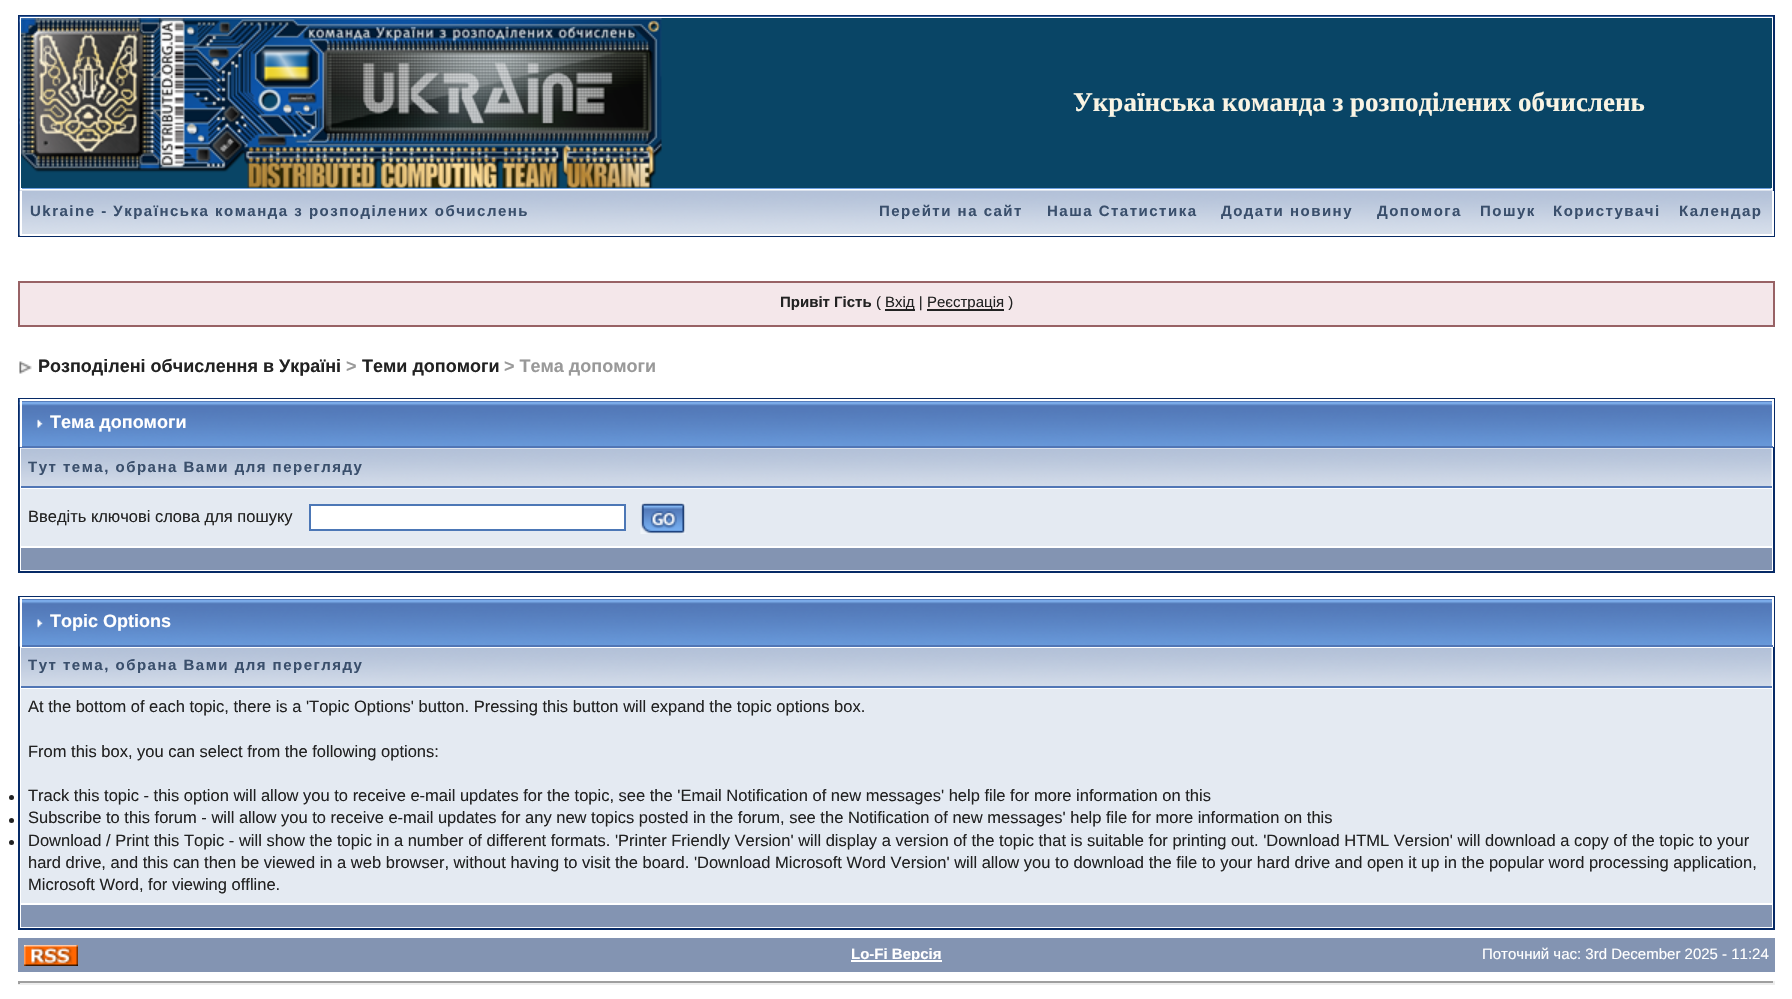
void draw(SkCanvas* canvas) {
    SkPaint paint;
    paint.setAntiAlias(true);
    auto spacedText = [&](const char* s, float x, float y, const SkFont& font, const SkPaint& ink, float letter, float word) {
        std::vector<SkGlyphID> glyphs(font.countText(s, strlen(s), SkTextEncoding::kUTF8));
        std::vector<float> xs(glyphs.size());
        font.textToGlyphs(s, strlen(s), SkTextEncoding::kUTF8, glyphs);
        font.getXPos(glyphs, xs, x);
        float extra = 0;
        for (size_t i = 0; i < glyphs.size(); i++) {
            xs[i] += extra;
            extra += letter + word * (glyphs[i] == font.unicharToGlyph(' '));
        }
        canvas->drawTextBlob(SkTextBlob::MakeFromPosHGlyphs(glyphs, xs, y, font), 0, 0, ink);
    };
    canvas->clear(0xFFFFFFFF);
    paint.setStyle(SkPaint::kStroke_Style);
    paint.setStrokeWidth(2);
    paint.setColor(0xFF072A66);
    canvas->drawRect(SkRect::MakeXYWH(19, 16, 1755, 220), paint);
    canvas->drawImageRect(SkImages::DeferredFromEncodedData(SkData::MakeFromFileName("img1.png")), SkRect::MakeXYWH(19, 16, 1754, 175), SkSamplingOptions());
    paint.setColor(0xFFFFFFFF);
    canvas->drawRect(SkRect::MakeXYWH(21, 18, 1751, 172), paint);
    paint.setStyle(SkPaint::kFill_Style);
    paint.setColor(0xFF094566);
    canvas->drawRect(SkRect::MakeXYWH(21, 18, 1751, 170), paint);
    canvas->drawImageRect(SkImages::DeferredFromEncodedData(SkData::MakeFromFileName("img2.png")), SkRect::MakeXYWH(21, 18, 641, 170), SkSamplingOptions());
    SkFont font1(fontMgr->matchFamilyStyle("Liberation Serif", SkFontStyle::Bold()), 27);
    font1.setSubpixel(true);
    paint.setColor(0xFFF9F4E4);
    canvas->drawString("Українська команда з розподілених обчислень", 1073, 111, font1, paint);
    canvas->drawImageRect(SkImages::DeferredFromEncodedData(SkData::MakeFromFileName("img3.png")), SkRect::MakeXYWH(19, 190, 1754, 46), SkSamplingOptions());
    paint.setColor(0xFFFFFFFF);
    canvas->drawRect(SkRect::MakeXYWH(1772, 191, 2, 45), paint);
    canvas->drawRect(SkRect::MakeXYWH(20, 234, 1753, 2), paint);
    canvas->drawRect(SkRect::MakeXYWH(20, 191, 2, 45), paint);
    SkFont font2(fontMgr->matchFamilyStyle("Liberation Sans", SkFontStyle::Bold()), 15);
    font2.setSubpixel(true);
    paint.setColor(0xFF3A4F6C);
    spacedText("Ukraine - Українська команда з розподілених обчислень", 30, 216, font2, paint, 1.5f, 0);
    spacedText("Перейти на сайт", 879, 216, font2, paint, 1.5f, 0);
    spacedText("Наша Статистика", 1047, 216, font2, paint, 1.5f, 0);
    spacedText("Додати новину", 1221, 216, font2, paint, 1.5f, 0);
    spacedText("Допомога", 1377, 216, font2, paint, 1.5f, 0);
    spacedText("Пошук", 1480, 216, font2, paint, 1.5f, 0);
    spacedText("Користувачі", 1553, 216, font2, paint, 1.5f, 0);
    spacedText("Календар", 1679, 216, font2, paint, 1.5f, 0);
    paint.setColor(0xFFF4E7EA);
    canvas->drawRect(SkRect::MakeXYWH(19, 282, 1755, 44), paint);
    paint.setStyle(SkPaint::kStroke_Style);
    paint.setColor(0xFF986265);
    canvas->drawRect(SkRect::MakeXYWH(19, 282, 1755, 44), paint);
    paint.setStyle(SkPaint::kFill_Style);
    paint.setColor(0xFF222222);
    canvas->drawString("Привіт Гість", 780, 307, font2, paint);
    SkFont font3(fontMgr->matchFamilyStyle("Liberation Sans", SkFontStyle::Normal()), 15);
    font3.setSubpixel(true);
    canvas->drawString("(", 876, 307, font3, paint);
    canvas->drawRect(SkRect::MakeXYWH(885, 309, 30, 2), paint);
    canvas->drawString("Вхід |", 885, 307, font3, paint);
    canvas->drawRect(SkRect::MakeXYWH(927, 309, 77, 2), paint);
    canvas->drawString("Реєстрація )", 927, 307, font3, paint);
    canvas->drawImageRect(SkImages::DeferredFromEncodedData(SkData::MakeFromFileName("img4.png")), SkRect::MakeXYWH(19, 361, 13, 13), SkSamplingOptions());
    SkFont font4(fontMgr->matchFamilyStyle("Liberation Sans", SkFontStyle::Bold()), 18);
    font4.setSubpixel(true);
    canvas->drawString("Розподілені обчислення в Україні", 38, 372, font4, paint);
    paint.setColor(0xFF999999);
    canvas->drawString(">", 346, 372, font4, paint);
    paint.setColor(0xFF222222);
    canvas->drawString("Теми допомоги", 362, 372, font4, paint);
    paint.setColor(0xFF999999);
    canvas->drawString("> Тема допомоги", 504, 372, font4, paint);
    paint.setStyle(SkPaint::kStroke_Style);
    paint.setColor(0xFF072A66);
    canvas->drawRect(SkRect::MakeXYWH(19, 399, 1755, 173), paint);
    canvas->drawImageRect(SkImages::DeferredFromEncodedData(SkData::MakeFromFileName("img5.png")), SkRect::MakeXYWH(19, 399, 1753, 48), SkSamplingOptions());
    paint.setStyle(SkPaint::kFill_Style);
    paint.setColor(0xFFFFFFFF);
    canvas->drawRect(SkRect::MakeXYWH(20, 399, 1753, 2), paint);
    canvas->drawRect(SkRect::MakeXYWH(1773, 399, 1, 48), paint);
    paint.setColor(0xFF5176B5);
    canvas->drawRect(SkRect::MakeXYWH(20, 446, 1753, 2), paint);
    paint.setColor(0xFFFFFFFF);
    canvas->drawRect(SkRect::MakeXYWH(20, 399, 2, 48), paint);
    canvas->drawImageRect(SkImages::DeferredFromEncodedData(SkData::MakeFromFileName("img6.png")), SkRect::MakeXYWH(37, 419, 6, 9), SkSamplingOptions());
    canvas->drawString("Тема допомоги", 50, 428, font4, paint);
    canvas->drawImageRect(SkImages::DeferredFromEncodedData(SkData::MakeFromFileName("img7.png")), SkRect::MakeXYWH(21, 448, 1751, 38), SkSamplingOptions());
    paint.setColor(0xFF5176B5);
    canvas->drawRect(SkRect::MakeXYWH(21, 486, 1751, 2), paint);
    paint.setColor(0xFF3A4F6C);
    spacedText("Тут тема, обрана Вами для перегляду", 28, 472, font2, paint, 1.5f, 0);
    paint.setColor(0xFFE4EAF2);
    canvas->drawRect(SkRect::MakeXYWH(21, 489, 1751, 57), paint);
    SkFont font5(fontMgr->matchFamilyStyle("Liberation Sans", SkFontStyle::Normal()), 16.5f);
    font5.setSubpixel(true);
    paint.setColor(0xFF222222);
    canvas->drawString("Введіть ключові слова для пошуку", 28, 522, font5, paint);
    paint.setColor(0xFFFFFFFF);
    canvas->drawRect(SkRect::MakeXYWH(310, 505, 315, 25), paint);
    paint.setStyle(SkPaint::kStroke_Style);
    paint.setColor(0xFF4C77B6);
    canvas->drawRect(SkRect::MakeXYWH(310, 505, 315, 25), paint);
    canvas->drawImageRect(SkImages::DeferredFromEncodedData(SkData::MakeFromFileName("img8.png")), SkRect::MakeXYWH(640, 502, 46, 32), SkSamplingOptions());
    paint.setStyle(SkPaint::kFill_Style);
    paint.setColor(0xFF8394B2);
    canvas->drawRect(SkRect::MakeXYWH(21, 548, 1751, 22), paint);
    paint.setStyle(SkPaint::kStroke_Style);
    paint.setColor(0xFF072A66);
    canvas->drawRect(SkRect::MakeXYWH(19, 597, 1755, 332), paint);
    canvas->drawImageRect(SkImages::DeferredFromEncodedData(SkData::MakeFromFileName("img9.png")), SkRect::MakeXYWH(19, 597, 1753, 50), SkSamplingOptions());
    paint.setStyle(SkPaint::kFill_Style);
    paint.setColor(0xFFFFFFFF);
    canvas->drawRect(SkRect::MakeXYWH(20, 597, 1753, 2), paint);
    canvas->drawRect(SkRect::MakeXYWH(1773, 597, 1, 50), paint);
    paint.setColor(0xFF5176B5);
    canvas->drawRect(SkRect::MakeXYWH(20, 645, 1753, 2), paint);
    paint.setColor(0xFFFFFFFF);
    canvas->drawRect(SkRect::MakeXYWH(20, 597, 2, 50), paint);
    canvas->drawImageRect(SkImages::DeferredFromEncodedData(SkData::MakeFromFileName("img10.png")), SkRect::MakeXYWH(37, 619, 6, 9), SkSamplingOptions());
    canvas->drawString("Topic Options", 50, 627, font4, paint);
    canvas->drawImageRect(SkImages::DeferredFromEncodedData(SkData::MakeFromFileName("img11.png")), SkRect::MakeXYWH(21, 648, 1751, 38), SkSamplingOptions());
    paint.setColor(0xFF5176B5);
    canvas->drawRect(SkRect::MakeXYWH(21, 686, 1751, 2), paint);
    paint.setColor(0xFF3A4F6C);
    spacedText("Тут тема, обрана Вами для перегляду", 28, 670, font2, paint, 1.5f, 0);
    paint.setColor(0xFFE4EAF2);
    canvas->drawRect(SkRect::MakeXYWH(21, 689, 1751, 214), paint);
    paint.setColor(0xFF222222);
    canvas->drawString("At the bottom of each topic, there is a 'Topic Options' button. Pressing this button will expand the topic options box.", 28, 712, font5, paint);
    canvas->drawString("From this box, you can select from the following options:", 28, 757, font5, paint);
    canvas->drawCircle(11.5f, 797.5f, 2.5f, paint);
    canvas->drawString("Track this topic - this option will allow you to receive e-mail updates for the topic, see the 'Email Notification of new messages' help file for more information on this", 28, 801, font5, paint);
    canvas->drawCircle(11.5f, 820.5f, 2.5f, paint);
    canvas->drawString("Subscribe to this forum - will allow you to receive e-mail updates for any new topics posted in the forum, see the Notification of new messages' help file for more information on this", 28, 823, font5, paint);
    canvas->drawCircle(11.5f, 842.5f, 2.5f, paint);
    canvas->drawString("Download / Print this Topic - will show the topic in a number of different formats. 'Printer Friendly Version' will display a version of the topic that is suitable for printing out. 'Download HTML Version' will download a copy of the topic to your", 28, 846, font5, paint);
    canvas->drawString("hard drive, and this can then be viewed in a web browser, without having to visit the board. 'Download Microsoft Word Version' will allow you to download the file to your hard drive and open it up in the popular word processing application,", 28, 868, font5, paint);
    canvas->drawString("Microsoft Word, for viewing offline.", 28, 890, font5, paint);
    paint.setColor(0xFF8394B2);
    canvas->drawRect(SkRect::MakeXYWH(21, 905, 1751, 22), paint);
    canvas->drawRect(SkRect::MakeXYWH(18, 938, 1757, 34), paint);
    canvas->drawImageRect(SkImages::DeferredFromEncodedData(SkData::MakeFromFileName("img12.png")), SkRect::MakeXYWH(24, 945, 54, 21), SkSamplingOptions());
    paint.setColor(0xFFFFFFFF);
    canvas->drawRect(SkRect::MakeXYWH(851, 960, 91, 2), paint);
    canvas->drawString("Lo-Fi Версія", 851, 959, font2, paint);
    canvas->drawString("Поточний час: 3rd December 2025 - 11:24", 1482, 959, font3, paint);
    paint.setColor(0xFF9F9F9F);
    canvas->drawRect(SkRect::MakeXYWH(18, 981, 1757, 2), paint);
    paint.setColor(0xFFEEEEEE);
    canvas->drawRect(SkRect::MakeXYWH(1773, 981, 2, 3), paint);
    canvas->drawRect(SkRect::MakeXYWH(18, 983, 1757, 2), paint);
    paint.setColor(0xFF9F9F9F);
    canvas->drawRect(SkRect::MakeXYWH(18, 981, 2, 3), paint);
}
